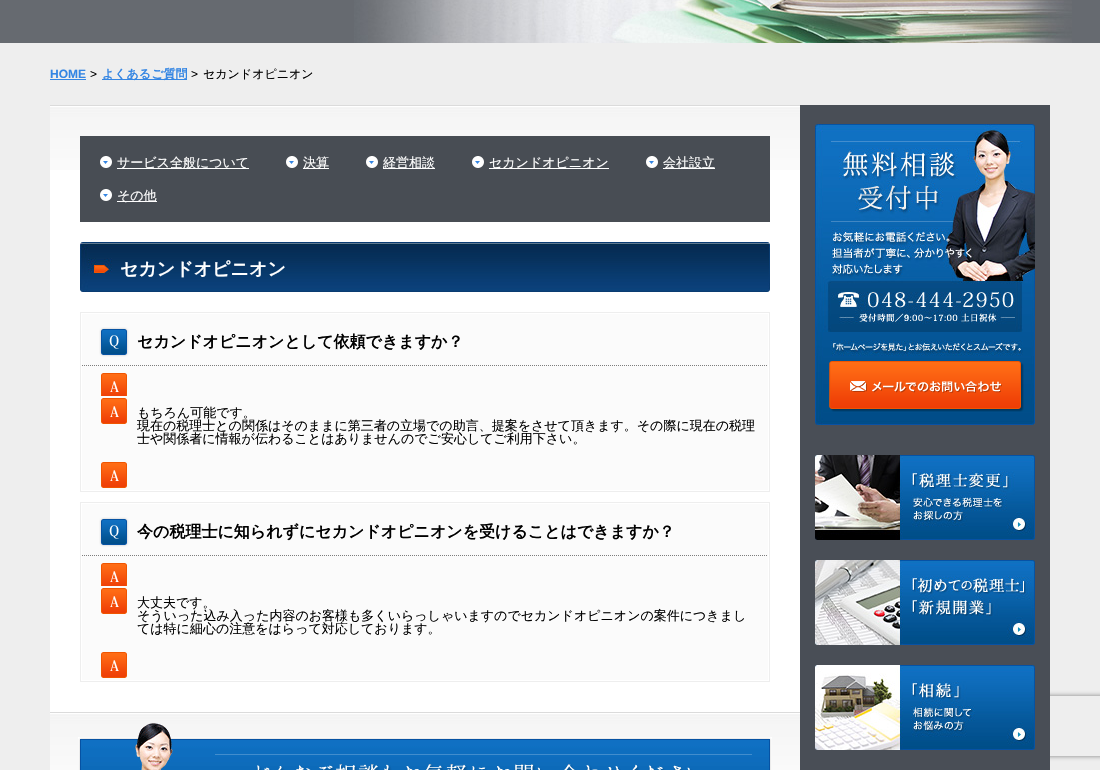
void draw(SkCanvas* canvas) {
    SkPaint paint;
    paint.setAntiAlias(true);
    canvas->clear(0xFFEEEEEE);
    paint.setColor(0xFF666A70);
    canvas->drawRect(SkRect::MakeXYWH(0, 0, 1100, 43), paint);
    canvas->drawImageRect(SkImages::DeferredFromEncodedData(SkData::MakeFromFileName("img1.png")), SkRect::MakeXYWH(354, 0, 718, 43), SkSamplingOptions());
    SkFont font1(fontMgr->matchFamilyStyle("Liberation Sans", SkFontStyle::Bold()), 12);
    font1.setSubpixel(true);
    paint.setColor(0xFF3385E3);
    canvas->drawString("HOME", 50, 78, font1, paint);
    canvas->drawRect(SkRect::MakeXYWH(50, 79, 36, 1), paint);
    SkFont font2(fontMgr->matchFamilyStyle("Liberation Sans", SkFontStyle::Normal()), 12);
    font2.setSubpixel(true);
    paint.setColor(0xFF000000);
    canvas->drawString(">", 90, 78, font2, paint);
    paint.setColor(0xFF3385E3);
    canvas->drawRect(SkRect::MakeXYWH(102, 79, 85, 1), paint);
    SkFont font3(fontMgr->matchFamilyStyle("WenQuanYi Zen Hei", SkFontStyle::Bold()), 12);
    font3.setSubpixel(true);
    canvas->drawString("よくあるご質問", 102, 78, font3, paint);
    paint.setColor(0xFF000000);
    canvas->drawString(">", 191, 78, font2, paint);
    SkFont font4(fontMgr->matchFamilyStyle("WenQuanYi Zen Hei", SkFontStyle(500, SkFontStyle::kNormal_Width, SkFontStyle::kUpright_Slant)), 12);
    font4.setSubpixel(true);
    canvas->drawString("セカンドオピニオン", 203, 78, font4, paint);
    canvas->save();
    canvas->clipPath(SkPathBuilder(SkPathFillType::kEvenOdd).moveTo(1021, 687).lineTo(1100, 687).lineTo(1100, 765).lineTo(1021, 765).close().moveTo(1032, 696).lineTo(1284, 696).cubicTo(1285, 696, 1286, 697, 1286, 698).lineTo(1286, 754).cubicTo(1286, 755, 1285, 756, 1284, 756).lineTo(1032, 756).cubicTo(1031, 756, 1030, 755, 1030, 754).lineTo(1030, 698).cubicTo(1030, 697, 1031, 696, 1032, 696).close().detach(), true);
    paint.setColor(0xFF808080);
    paint.setMaskFilter(SkMaskFilter::MakeBlur(kNormal_SkBlurStyle, 2.5f));
    canvas->drawRoundRect(SkRect::MakeXYWH(1030, 696, 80, 60), 2, 2, paint);
    paint.setMaskFilter(nullptr);
    canvas->restore();
    paint.setColor(0xFF494E56);
    canvas->drawRect(SkRect::MakeXYWH(800, 105, 250, 665), paint);
    paint.setColor(0xFFFFFFFF);
    canvas->drawRect(SkRect::MakeXYWH(50, 106, 750, 608), paint);
    canvas->drawImageRect(SkImages::DeferredFromEncodedData(SkData::MakeFromFileName("img2.png")), SkRect::MakeXYWH(50, 107, 750, 63), SkSamplingOptions());
    paint.setColor(0xFFDBDBDB);
    canvas->drawRect(SkRect::MakeXYWH(50, 105, 750, 1), paint);
    paint.setColor(0xFF484D54);
    canvas->drawRect(SkRect::MakeXYWH(80, 136, 690, 86), paint);
    canvas->drawImageRect(SkImages::DeferredFromEncodedData(SkData::MakeFromFileName("img3.png")), SkRect::MakeXYWH(100, 156, 12, 12), SkSamplingOptions());
    paint.setColor(0xFFFFFFFF);
    canvas->drawRect(SkRect::MakeXYWH(117, 168, 132, 1), paint);
    SkFont font5(fontMgr->matchFamilyStyle("WenQuanYi Zen Hei", SkFontStyle(500, SkFontStyle::kNormal_Width, SkFontStyle::kUpright_Slant)), 13);
    font5.setSubpixel(true);
    canvas->drawString("サービス全般について", 117, 167, font5, paint);
    canvas->drawImageRect(SkImages::DeferredFromEncodedData(SkData::MakeFromFileName("img3.png")), SkRect::MakeXYWH(286, 156, 12, 12), SkSamplingOptions());
    canvas->drawRect(SkRect::MakeXYWH(303, 168, 26, 1), paint);
    canvas->drawString("決算", 303, 167, font5, paint);
    canvas->drawImageRect(SkImages::DeferredFromEncodedData(SkData::MakeFromFileName("img3.png")), SkRect::MakeXYWH(366, 156, 12, 12), SkSamplingOptions());
    canvas->drawRect(SkRect::MakeXYWH(383, 168, 52, 1), paint);
    canvas->drawString("経営相談", 383, 167, font5, paint);
    canvas->drawImageRect(SkImages::DeferredFromEncodedData(SkData::MakeFromFileName("img3.png")), SkRect::MakeXYWH(472, 156, 12, 12), SkSamplingOptions());
    canvas->drawRect(SkRect::MakeXYWH(489, 168, 120, 1), paint);
    canvas->drawString("セカンドオピニオン", 489, 167, font5, paint);
    canvas->drawImageRect(SkImages::DeferredFromEncodedData(SkData::MakeFromFileName("img3.png")), SkRect::MakeXYWH(646, 156, 12, 12), SkSamplingOptions());
    canvas->drawRect(SkRect::MakeXYWH(663, 168, 52, 1), paint);
    canvas->drawString("会社設立", 663, 167, font5, paint);
    canvas->drawImageRect(SkImages::DeferredFromEncodedData(SkData::MakeFromFileName("img3.png")), SkRect::MakeXYWH(100, 189, 12, 12), SkSamplingOptions());
    canvas->drawRect(SkRect::MakeXYWH(117, 201, 40, 1), paint);
    canvas->drawString("その他", 117, 200, font5, paint);
    canvas->drawImageRect(SkImages::DeferredFromEncodedData(SkData::MakeFromFileName("img4.png")), SkRect::MakeXYWH(80, 242, 690, 50), SkSamplingOptions());
    SkFont font6(fontMgr->matchFamilyStyle("WenQuanYi Zen Hei", SkFontStyle::Bold()), 18);
    font6.setSubpixel(true);
    canvas->drawString("セカンドオピニオン", 120, 275, font6, paint);
    paint.setStyle(SkPaint::kStroke_Style);
    paint.setStrokeWidth(1);
    paint.setColor(0xFFEEEEEE);
    canvas->drawRect(SkRect::MakeXYWH(80.5f, 312.5f, 689, 179), paint);
    paint.setStyle(SkPaint::kFill_Style);
    paint.setColor(0xFFFBFBFB);
    canvas->drawRect(SkRect::MakeXYWH(82, 314, 686, 176), paint);
    paint.setStyle(SkPaint::kStroke_Style);
    paint.setColor(0xFF7D7D7D);
    paint.setPathEffect(SkDashPathEffect::Make({{1, 1}}, 0));
    canvas->drawPath(SkPathBuilder().moveTo(82, 365.5f).lineTo(768, 365.5f).detach(), paint);
    paint.setPathEffect(nullptr);
    canvas->drawImageRect(SkImages::DeferredFromEncodedData(SkData::MakeFromFileName("img5.png")), SkRect::MakeXYWH(99, 327, 30, 30), SkSamplingOptions());
    SkFont font7(fontMgr->matchFamilyStyle("WenQuanYi Zen Hei", SkFontStyle::Bold()), 16);
    font7.setSubpixel(true);
    paint.setStyle(SkPaint::kFill_Style);
    paint.setColor(0xFF000000);
    canvas->drawString("セカンドオピニオンとして依頼できますか？", 137, 347, font7, paint);
    canvas->drawImageRect(SkImages::DeferredFromEncodedData(SkData::MakeFromFileName("img6.png")), SkRect::MakeXYWH(101, 373, 26, 23), SkSamplingOptions());
    canvas->drawImageRect(SkImages::DeferredFromEncodedData(SkData::MakeFromFileName("img7.png")), SkRect::MakeXYWH(101, 396, 26, 28), SkSamplingOptions());
    canvas->drawString("もちろん可能です。", 137, 417, font5, paint);
    canvas->drawString("現在の税理士との関係はそのままに第三者の立場での助言、提案をさせて頂きます。その際に現在の税理", 137, 430, font5, paint);
    canvas->drawString("士や関係者に情報が伝わることはありませんのでご安心してご利用下さい。", 137, 443, font5, paint);
    canvas->drawImageRect(SkImages::DeferredFromEncodedData(SkData::MakeFromFileName("img8.png")), SkRect::MakeXYWH(101, 462, 26, 26), SkSamplingOptions());
    paint.setStyle(SkPaint::kStroke_Style);
    paint.setColor(0xFFEEEEEE);
    canvas->drawRect(SkRect::MakeXYWH(80.5f, 502.5f, 689, 179), paint);
    paint.setStyle(SkPaint::kFill_Style);
    paint.setColor(0xFFFBFBFB);
    canvas->drawRect(SkRect::MakeXYWH(82, 504, 686, 176), paint);
    paint.setStyle(SkPaint::kStroke_Style);
    paint.setColor(0xFF7D7D7D);
    paint.setPathEffect(SkDashPathEffect::Make({{1, 1}}, 0));
    canvas->drawPath(SkPathBuilder().moveTo(82, 555.5f).lineTo(768, 555.5f).detach(), paint);
    paint.setPathEffect(nullptr);
    canvas->drawImageRect(SkImages::DeferredFromEncodedData(SkData::MakeFromFileName("img5.png")), SkRect::MakeXYWH(99, 517, 30, 30), SkSamplingOptions());
    paint.setStyle(SkPaint::kFill_Style);
    paint.setColor(0xFF000000);
    canvas->drawString("今の税理士に知られずにセカンドオピニオンを受けることはできますか？", 137, 537, font7, paint);
    canvas->drawImageRect(SkImages::DeferredFromEncodedData(SkData::MakeFromFileName("img6.png")), SkRect::MakeXYWH(101, 563, 26, 23), SkSamplingOptions());
    canvas->drawImageRect(SkImages::DeferredFromEncodedData(SkData::MakeFromFileName("img7.png")), SkRect::MakeXYWH(101, 586, 26, 28), SkSamplingOptions());
    canvas->drawString("大丈夫です。", 137, 607, font5, paint);
    canvas->drawString("そういった込み入った内容のお客様も多くいらっしゃいますのでセカンドオピニオンの案件につきまし", 137, 620, font5, paint);
    canvas->drawString("ては特に細心の注意をはらって対応しております。", 137, 633, font5, paint);
    canvas->drawImageRect(SkImages::DeferredFromEncodedData(SkData::MakeFromFileName("img8.png")), SkRect::MakeXYWH(101, 652, 26, 26), SkSamplingOptions());
    canvas->drawImageRect(SkImages::DeferredFromEncodedData(SkData::MakeFromFileName("img9.png")), SkRect::MakeXYWH(50, 714, 750, 56), SkSamplingOptions());
    paint.setColor(0xFFDBDBDB);
    canvas->drawRect(SkRect::MakeXYWH(50, 712, 750, 1), paint);
    canvas->drawImageRect(SkImages::DeferredFromEncodedData(SkData::MakeFromFileName("img10.png")), SkRect::MakeXYWH(78, 723, 694, 47), SkSamplingOptions());
    canvas->drawImageRect(SkImages::DeferredFromEncodedData(SkData::MakeFromFileName("img11.png")), SkRect::MakeXYWH(815, 124, 220, 301), SkSamplingOptions());
    canvas->drawImageRect(SkImages::DeferredFromEncodedData(SkData::MakeFromFileName("img12.png")), SkRect::MakeXYWH(829, 361, 195, 51), SkSamplingOptions());
    canvas->drawImageRect(SkImages::DeferredFromEncodedData(SkData::MakeFromFileName("img13.png")), SkRect::MakeXYWH(815, 455, 220, 85), SkSamplingOptions());
    canvas->drawImageRect(SkImages::DeferredFromEncodedData(SkData::MakeFromFileName("img14.png")), SkRect::MakeXYWH(815, 560, 220, 85), SkSamplingOptions());
    canvas->drawImageRect(SkImages::DeferredFromEncodedData(SkData::MakeFromFileName("img15.png")), SkRect::MakeXYWH(815, 665, 220, 85), SkSamplingOptions());
}
